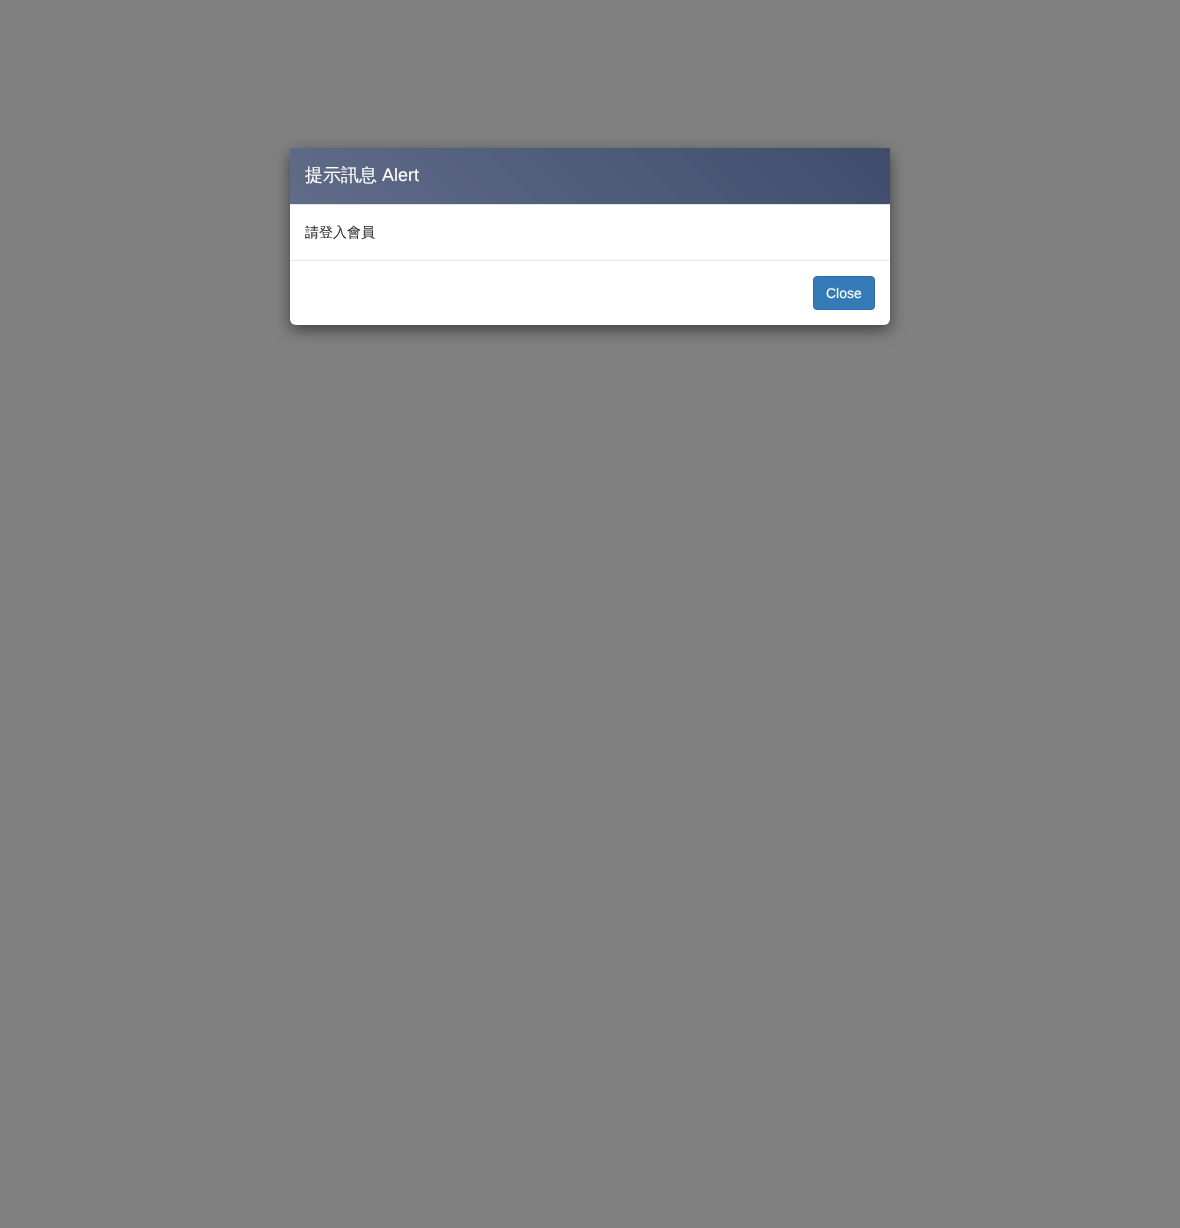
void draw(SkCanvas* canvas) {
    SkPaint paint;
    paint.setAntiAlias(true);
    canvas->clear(0xFF808080);
    paint.setColor(0x80000000);
    paint.setMaskFilter(SkMaskFilter::MakeBlur(kNormal_SkBlurStyle, 7.5f));
    canvas->drawRoundRect(SkRect::MakeXYWH(290, 153, 600, 177), 6, 6, paint);
    paint.setMaskFilter(nullptr);
    paint.setColor(0xFFFFFFFF);
    canvas->drawRoundRect(SkRect::MakeXYWH(290, 148, 600, 177), 6, 6, paint);
    {
        const SkColor colors[] = {0xFF606C88, 0xFF3F4C6B};
        const float stops[] = {0, 1};
        const SkPoint ends[] = {{426, 340}, {754, 12}};
        paint.setShader(SkGradientShader::MakeLinear(ends, colors, stops, 2, SkTileMode::kClamp));
        paint.setAlpha(255);
    }
    canvas->drawRect(SkRect::MakeXYWH(290, 148, 600, 56), paint);
    paint.setShader(nullptr);
    paint.setColor(0xFFE5E5E5);
    canvas->drawRect(SkRect::MakeXYWH(290, 204, 600, 1), paint);
    SkFont font1(fontMgr->matchFamilyStyle("WenQuanYi Zen Hei", SkFontStyle(500, SkFontStyle::kNormal_Width, SkFontStyle::kUpright_Slant)), 18);
    font1.setSubpixel(true);
    paint.setColor(0xFFFFFFFF);
    canvas->drawString("提示訊息", 305, 181, font1, paint);
    SkFont font2(fontMgr->matchFamilyStyle("Liberation Sans", SkFontStyle::Normal()), 18);
    font2.setSubpixel(true);
    canvas->drawString("Alert", 382, 181, font2, paint);
    SkFont font3(fontMgr->matchFamilyStyle("WenQuanYi Zen Hei", SkFontStyle(500, SkFontStyle::kNormal_Width, SkFontStyle::kUpright_Slant)), 14);
    font3.setSubpixel(true);
    paint.setColor(0xFF333333);
    canvas->drawString("請登入會員", 305, 237, font3, paint);
    paint.setColor(0xFFE5E5E5);
    canvas->drawRect(SkRect::MakeXYWH(290, 260, 600, 1), paint);
    paint.setColor(0xFF337AB7);
    canvas->drawRoundRect(SkRect::MakeXYWH(813.5f, 276.5f, 61, 33), 3.5f, 3.5f, paint);
    paint.setStyle(SkPaint::kStroke_Style);
    paint.setStrokeWidth(1);
    paint.setColor(0xFF2E6DA4);
    canvas->drawRoundRect(SkRect::MakeXYWH(813.5f, 276.5f, 61, 33), 3.5f, 3.5f, paint);
    SkFont font4(fontMgr->matchFamilyStyle("Liberation Sans", SkFontStyle::Normal()), 14);
    font4.setSubpixel(true);
    paint.setStyle(SkPaint::kFill_Style);
    paint.setColor(0xFFFFFFFF);
    canvas->drawString("Close", 826, 298, font4, paint);
}
